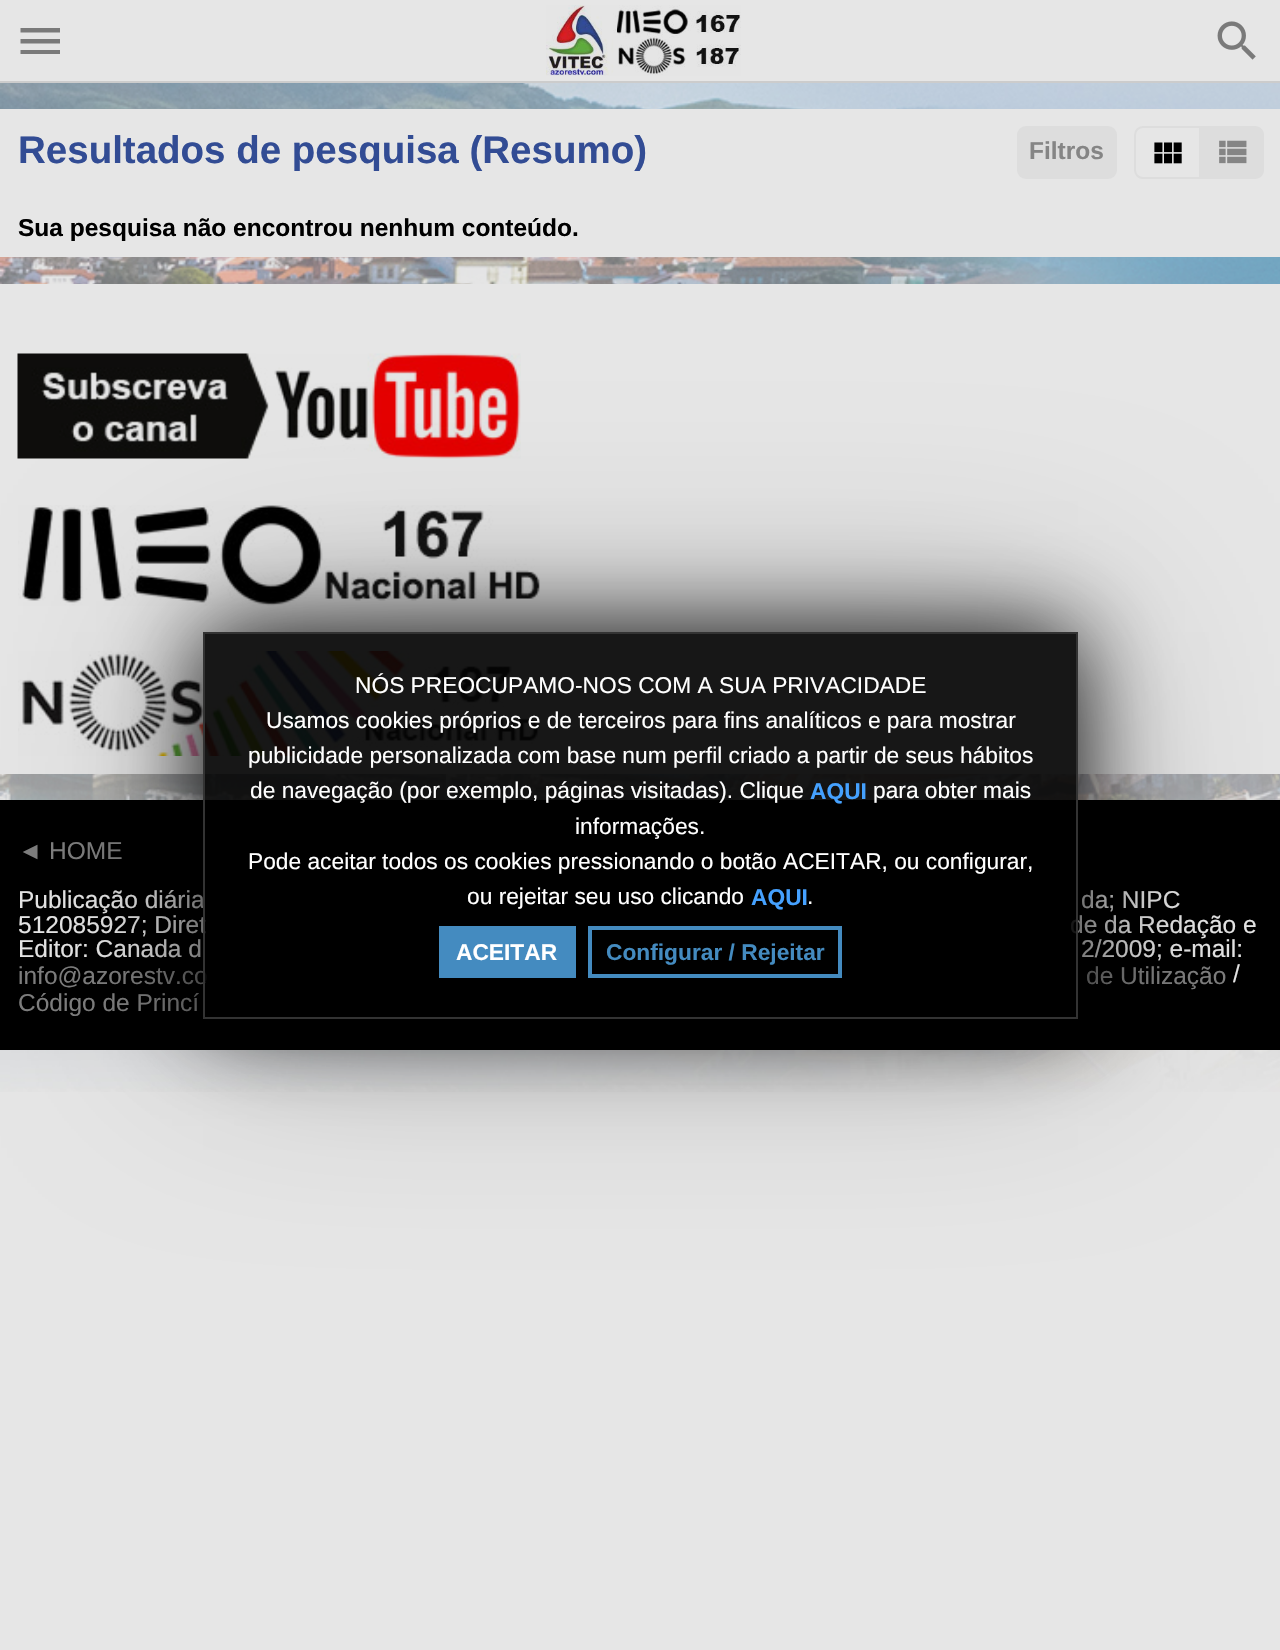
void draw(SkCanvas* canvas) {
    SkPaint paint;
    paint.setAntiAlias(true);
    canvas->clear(0xFFE6E6E6);
    canvas->drawImageRect(SkImages::DeferredFromEncodedData(SkData::MakeFromFileName("img1.png")), SkRect::MakeXYWH(0, 1050, 1280, 42), SkSamplingOptions());
    canvas->drawImageRect(SkImages::DeferredFromEncodedData(SkData::MakeFromFileName("img2.png")), SkRect::MakeXYWH(0, 83, 1280, 717), SkSamplingOptions());
    paint.setColor(0xFFCCCCCC);
    canvas->drawRect(SkRect::MakeXYWH(0, 81, 1280, 2), paint);
    paint.setColor(0xFF7A7A7A);
    canvas->drawPath(SkPathBuilder().moveTo(20.5f, 28).lineTo(60, 28).lineTo(60, 32.5f).lineTo(20.5f, 32.5f).close().moveTo(20.5f, 43.5f).lineTo(20.5f, 39).lineTo(60, 39).lineTo(60, 43.5f).close().moveTo(20.5f, 54).lineTo(20.5f, 50).lineTo(60, 50).lineTo(60, 54).close().detach(), paint);
    canvas->drawImageRect(SkImages::DeferredFromEncodedData(SkData::MakeFromFileName("img3.png")), SkRect::MakeXYWH(546, 5, 195, 71), SkSamplingOptions());
    canvas->drawImageRect(SkImages::DeferredFromEncodedData(SkData::MakeFromFileName("img4.png")), SkRect::MakeXYWH(1217, 21, 39, 39), SkSamplingOptions());
    paint.setColor(0xFFE6E6E6);
    canvas->drawRect(SkRect::MakeXYWH(0, 109, 1280, 148), paint);
    SkFont font1(fontMgr->matchFamilyStyle("Liberation Sans", SkFontStyle::Bold()), 38.5f);
    font1.setSubpixel(true);
    paint.setColor(0xFF324C94);
    canvas->drawString("Resultados de pesquisa (Resumo)", 18, 163, font1, paint);
    paint.setColor(0xFFDDDDDD);
    canvas->drawRoundRect(SkRect::MakeXYWH(1017, 126, 100, 53), 9, 9, paint);
    SkFont font2(fontMgr->matchFamilyStyle("Liberation Sans", SkFontStyle::Bold()), 24.5f);
    font2.setSubpixel(true);
    paint.setColor(0xFF858585);
    canvas->drawString("Filtros", 1029, 159, font2, paint);
    paint.setStyle(SkPaint::kStroke_Style);
    paint.setStrokeWidth(2);
    paint.setColor(0xFFDDDDDD);
    canvas->drawPath(SkPathBuilder().moveTo(1143, 127).lineTo(1200, 127).lineTo(1200, 178).lineTo(1143, 178).cubicTo(1138.5f, 178, 1135, 174.5f, 1135, 170).lineTo(1135, 135).cubicTo(1135, 130.5f, 1138.5f, 127, 1143, 127).close().detach(), paint);
    canvas->drawImageRect(SkImages::DeferredFromEncodedData(SkData::MakeFromFileName("img5.png")), SkRect::MakeXYWH(1154, 142, 28, 22), SkSamplingOptions());
    paint.setStyle(SkPaint::kFill_Style);
    canvas->drawPath(SkPathBuilder().moveTo(1201, 126).lineTo(1255, 126).cubicTo(1260, 126, 1264, 130, 1264, 135).lineTo(1264, 170).cubicTo(1264, 175, 1260, 179, 1255, 179).lineTo(1201, 179).close().detach(), paint);
    canvas->drawImageRect(SkImages::DeferredFromEncodedData(SkData::MakeFromFileName("img6.png")), SkRect::MakeXYWH(1219, 140, 28, 24), SkSamplingOptions());
    paint.setColor(0xFF000000);
    canvas->drawString("Sua pesquisa não encontrou nenhum conteúdo.", 18, 236, font2, paint);
    paint.setColor(0xFFE6E6E6);
    canvas->drawRect(SkRect::MakeXYWH(0, 284, 1280, 490), paint);
    canvas->drawImageRect(SkImages::DeferredFromEncodedData(SkData::MakeFromFileName("img7.png")), SkRect::MakeXYWH(17, 353, 504, 106), SkSamplingOptions());
    canvas->drawImageRect(SkImages::DeferredFromEncodedData(SkData::MakeFromFileName("img8.png")), SkRect::MakeXYWH(18, 505, 522, 101), SkSamplingOptions());
    canvas->drawImageRect(SkImages::DeferredFromEncodedData(SkData::MakeFromFileName("img9.png")), SkRect::MakeXYWH(18, 651, 522, 105), SkSamplingOptions());
    paint.setColor(0xFF000000);
    canvas->drawRect(SkRect::MakeXYWH(0, 800, 1280, 250), paint);
    SkFont font3(fontMgr->matchFamilyStyle("Liberation Sans", SkFontStyle::Normal()), 24.5f);
    font3.setSubpixel(true);
    paint.setColor(0xFF7E7E7E);
    canvas->drawString("◄ HOME", 18, 859, font3, paint);
    paint.setColor(0xFFE6E6E6);
    canvas->drawString("Publicação diária", 18, 908, font3, paint);
    canvas->drawString("da; NIPC", 1081, 908, font3, paint);
    canvas->drawString("512085927; Diret", 18, 933, font3, paint);
    canvas->drawString("de da Redação e", 1070, 933, font3, paint);
    canvas->drawString("Editor: Canada d", 18, 957, font3, paint);
    canvas->drawString("2/2009; e-mail:", 1081, 957, font3, paint);
    paint.setColor(0xFF7E7E7E);
    canvas->drawString("info@azorestv.co", 18, 984, font3, paint);
    canvas->drawString("de Utilização", 1086, 984, font3, paint);
    paint.setColor(0xFFE6E6E6);
    canvas->drawString("/", 1233, 982, font3, paint);
    paint.setColor(0xFF7E7E7E);
    canvas->drawString("Código de Princí", 18, 1011, font3, paint);
    canvas->save();
    canvas->clipPath(SkPathBuilder(SkPathFillType::kEvenOdd).moveTo(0, 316).lineTo(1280, 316).lineTo(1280, 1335).lineTo(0, 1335).close().moveTo(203, 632).lineTo(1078, 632).lineTo(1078, 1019).lineTo(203, 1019).close().detach(), true);
    paint.setColor(0x4D000000);
    paint.setMaskFilter(SkMaskFilter::MakeBlur(kNormal_SkBlurStyle, 105));
    canvas->drawRect(SkRect::MakeXYWH(203, 632, 875, 387), paint);
    paint.setMaskFilter(nullptr);
    canvas->restore();
    canvas->save();
    canvas->clipPath(SkPathBuilder(SkPathFillType::kEvenOdd).moveTo(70, 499).lineTo(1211, 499).lineTo(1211, 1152).lineTo(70, 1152).close().moveTo(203, 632).lineTo(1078, 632).lineTo(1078, 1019).lineTo(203, 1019).close().detach(), true);
    paint.setColor(0xE6000000);
    paint.setMaskFilter(SkMaskFilter::MakeBlur(kNormal_SkBlurStyle, 44));
    canvas->drawRect(SkRect::MakeXYWH(203, 632, 875, 387), paint);
    paint.setMaskFilter(nullptr);
    canvas->restore();
    canvas->drawRect(SkRect::MakeXYWH(205, 634, 871, 348), paint);
    paint.setStyle(SkPaint::kStroke_Style);
    paint.setColor(0xFF333333);
    canvas->drawRect(SkRect::MakeXYWH(204, 633, 873, 385), paint);
    SkFont font4(fontMgr->matchFamilyStyle("Liberation Sans", SkFontStyle::Normal()), 22.75f);
    font4.setSubpixel(true);
    paint.setStyle(SkPaint::kFill_Style);
    paint.setColor(0xFFFFFFFF);
    canvas->drawString("NÓS PREOCUPAMO-NOS COM A SUA PRIVACIDADE", 355, 693, font4, paint);
    canvas->drawString("Usamos cookies próprios e de terceiros para fins analíticos e para mostrar", 266, 728, font4, paint);
    canvas->drawString("publicidade personalizada com base num perfil criado a partir de seus hábitos", 248, 763, font4, paint);
    canvas->drawString("de navegação (por exemplo, páginas visitadas). Clique", 250, 798, font4, paint);
    SkFont font5(fontMgr->matchFamilyStyle("Liberation Sans", SkFontStyle::Bold()), 22.75f);
    font5.setSubpixel(true);
    paint.setColor(0xFF45A1FF);
    canvas->drawString("AQUI", 810, 799, font5, paint);
    paint.setColor(0xFFFFFFFF);
    canvas->drawString("para obter mais", 873, 798, font4, paint);
    canvas->drawString("informações.", 575, 834, font4, paint);
    canvas->drawString("Pode aceitar todos os cookies pressionando o botão ACEITAR, ou configurar,", 248, 869, font4, paint);
    canvas->drawString("ou rejeitar seu uso clicando", 467, 904, font4, paint);
    paint.setColor(0xFF45A1FF);
    canvas->drawString("AQUI", 751, 905, font5, paint);
    paint.setColor(0xFFFFFFFF);
    canvas->drawString(".", 807, 904, font4, paint);
    paint.setColor(0xFF448BC0);
    canvas->drawRect(SkRect::MakeXYWH(439, 926, 137, 52), paint);
    paint.setColor(0xFFFFFFFF);
    canvas->drawString("ACEITAR", 456, 960, font5, paint);
    paint.setStyle(SkPaint::kStroke_Style);
    paint.setStrokeWidth(4);
    paint.setColor(0xFF448BC0);
    canvas->drawRect(SkRect::MakeXYWH(590, 928, 250, 48), paint);
    paint.setStyle(SkPaint::kFill_Style);
    canvas->drawString("Configurar / Rejeitar", 606, 960, font5, paint);
}
